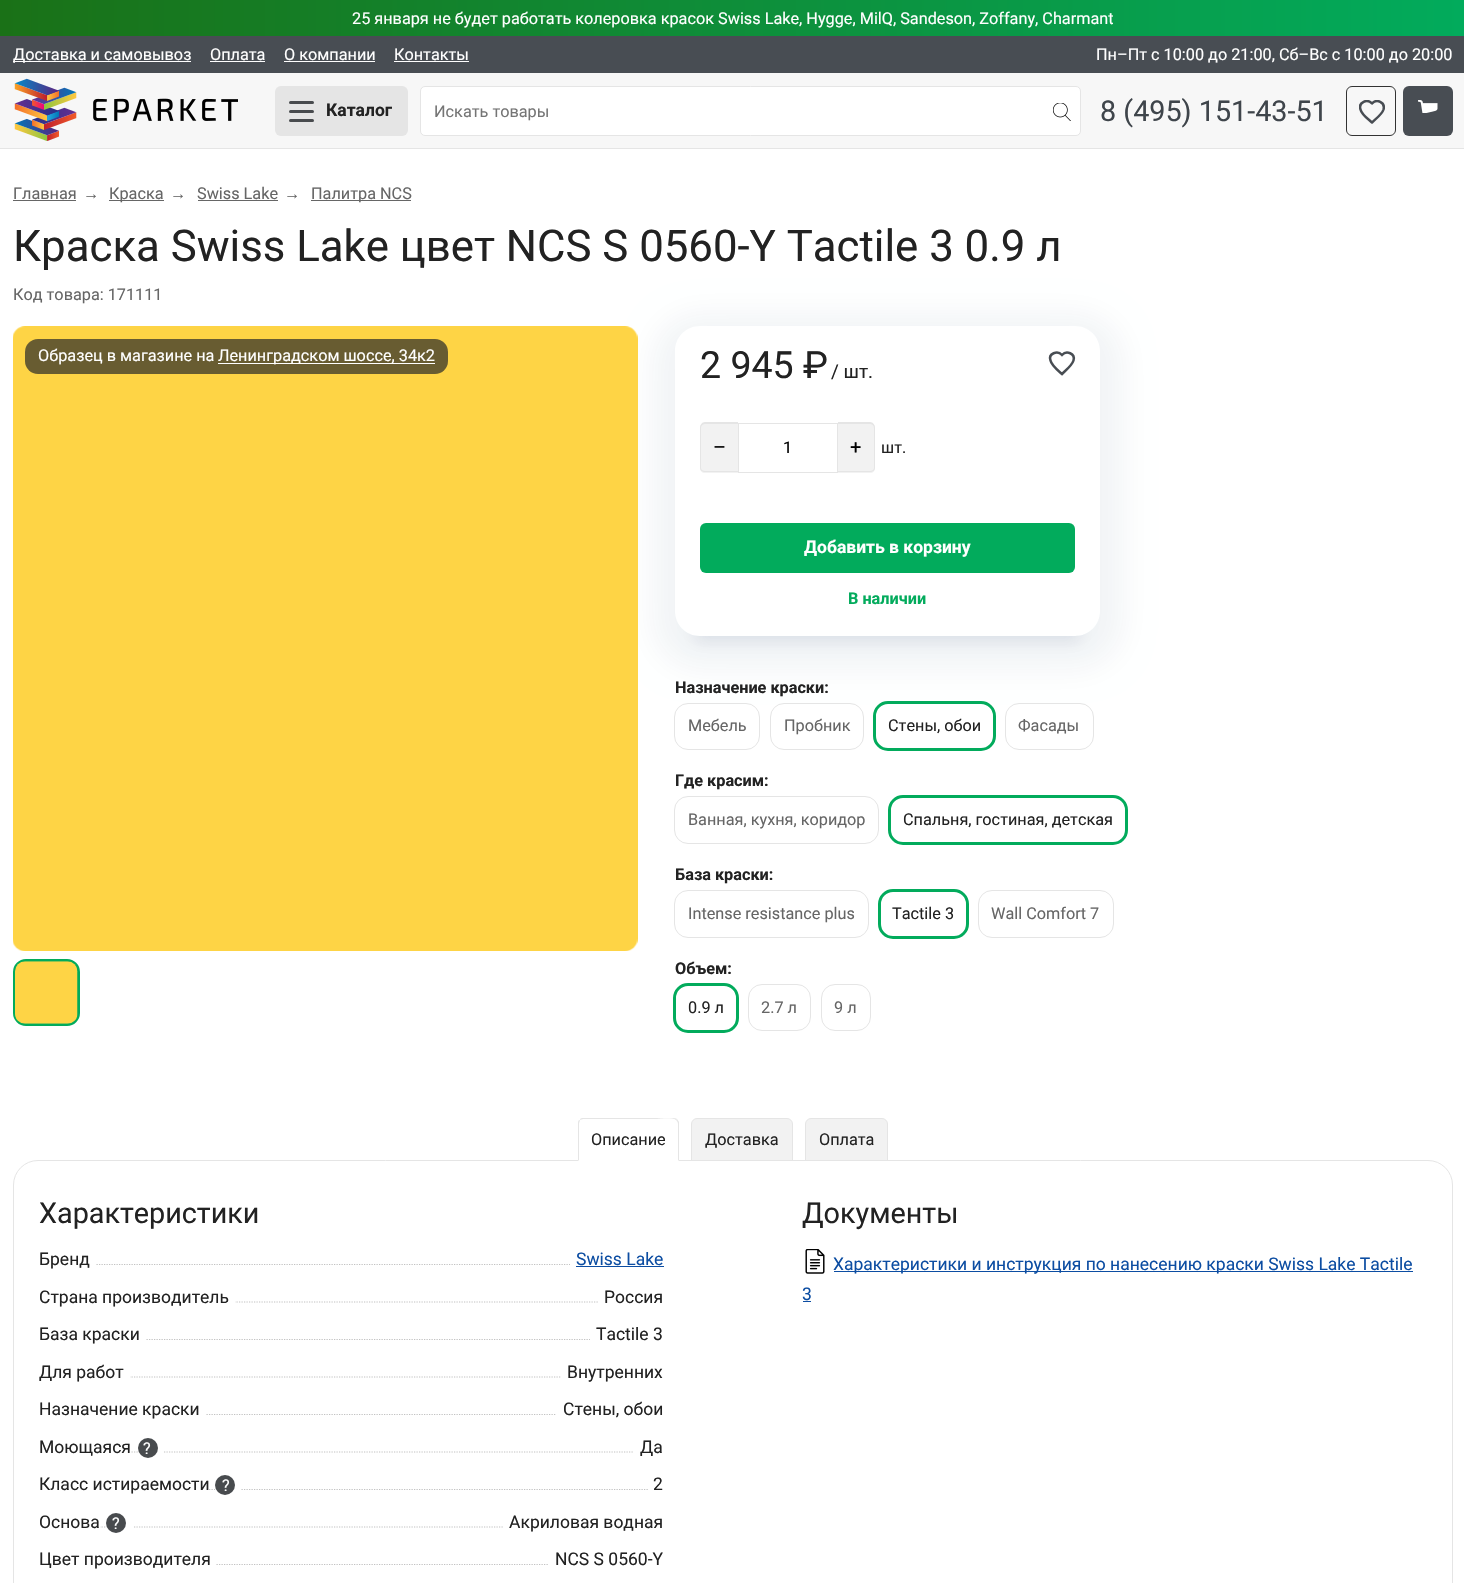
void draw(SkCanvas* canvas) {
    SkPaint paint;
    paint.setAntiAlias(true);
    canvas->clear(0xFFFFFFFF);
    {
        const SkColor colors[] = {0xFF1A7117, 0xFF02AB5C};
        const float stops[] = {0, 1};
        const SkPoint ends[] = {{0, 18}, {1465, 18}};
        paint.setShader(SkGradientShader::MakeLinear(ends, colors, stops, 2, SkTileMode::kClamp));
        paint.setAlpha(255);
    }
    canvas->drawRect(SkRect::MakeXYWH(0, 0, 1464, 36), paint);
    SkFont font1(fontMgr->matchFamilyStyle("Roboto", SkFontStyle::Normal()), 16.25f);
    font1.setSubpixel(true);
    paint.setShader(nullptr);
    paint.setColor(0xFFFFFFFF);
    canvas->drawString("25 января не будет работать колеровка красок Swiss Lake, Hygge, MilQ, Sandeson, Zoffany, Charmant", 352, 24, font1, paint);
    paint.setColor(0xFF484D53);
    canvas->drawRect(SkRect::MakeXYWH(0, 36, 1464, 37), paint);
    paint.setColor(0xFFFFFFFF);
    canvas->drawRect(SkRect::MakeXYWH(13, 61, 178, 1), paint);
    canvas->drawString("Доставка и самовывоз", 13, 60, font1, paint);
    canvas->drawString("Оплата", 210, 60, font1, paint);
    canvas->drawRect(SkRect::MakeXYWH(210, 61, 55, 1), paint);
    canvas->drawString("О компании", 284, 60, font1, paint);
    canvas->drawRect(SkRect::MakeXYWH(284, 61, 91, 1), paint);
    canvas->drawString("Контакты", 394, 60, font1, paint);
    canvas->drawRect(SkRect::MakeXYWH(394, 61, 75, 1), paint);
    canvas->drawString("Пн–Пт с 10:00 до 21:00, Сб–Вс с 10:00 до 20:00", 1096, 60, font1, paint);
    paint.setColor(0xFFF7F7F7);
    canvas->drawRect(SkRect::MakeXYWH(0, 73, 1464, 75), paint);
    paint.setColor(0xFFE5E5E5);
    canvas->drawRect(SkRect::MakeXYWH(0, 148, 1464, 1), paint);
    canvas->drawImageRect(SkImages::DeferredFromEncodedData(SkData::MakeFromFileName("img1.png")), SkRect::MakeXYWH(14, 78, 224, 63), SkSamplingOptions());
    canvas->drawRoundRect(SkRect::MakeXYWH(275, 86, 133, 50), 6, 6, paint);
    paint.setColor(0xFF484B4E);
    canvas->drawRoundRect(SkRect::MakeXYWH(289, 101, 25, 3), 1.5f, 1.5f, paint);
    canvas->drawRoundRect(SkRect::MakeXYWH(289, 110, 25, 3), 1.5f, 1.5f, paint);
    SkFont font2(fontMgr->matchFamilyStyle("Roboto", SkFontStyle::Bold()), 17.5f);
    font2.setSubpixel(true);
    paint.setColor(0xFF222222);
    canvas->drawString("Каталог", 326, 116, font2, paint);
    paint.setColor(0xFF484B4E);
    canvas->drawRoundRect(SkRect::MakeXYWH(289, 119, 25, 3), 1.5f, 1.5f, paint);
    paint.setColor(0xFFFFFFFF);
    canvas->drawRoundRect(SkRect::MakeXYWH(420.5f, 86.5f, 660, 49), 4.5f, 4.5f, paint);
    paint.setStyle(SkPaint::kStroke_Style);
    paint.setStrokeWidth(1);
    paint.setColor(0xFFE5E5E5);
    canvas->drawRoundRect(SkRect::MakeXYWH(420.5f, 86.5f, 660, 49), 4.5f, 4.5f, paint);
    paint.setStyle(SkPaint::kFill_Style);
    paint.setColor(0xFF757575);
    canvas->drawString("Искать товары", 434, 117, font1, paint);
    canvas->drawImageRect(SkImages::DeferredFromEncodedData(SkData::MakeFromFileName("img2.png")), SkRect::MakeXYWH(1053, 103, 18, 18), SkSamplingOptions());
    SkFont font3(fontMgr->matchFamilyStyle("Roboto", SkFontStyle::Normal()), 28.75f);
    font3.setSubpixel(true);
    paint.setColor(0xFF3F454B);
    canvas->drawString("8 (495) 151-43-51", 1100, 121, font3, paint);
    paint.setStyle(SkPaint::kStroke_Style);
    paint.setColor(0xFF333333);
    canvas->drawRoundRect(SkRect::MakeXYWH(1346.5f, 86.5f, 49, 49), 5.5f, 5.5f, paint);
    canvas->save();
    canvas->clipRect(SkRect::MakeXYWH(1359, 100, 26, 25));
    paint.setStrokeWidth(2.5f);
    paint.setStrokeJoin(SkPaint::kRound_Join);
    paint.setColor(0xFF484D53);
    canvas->drawPath(SkPathBuilder().moveTo(1372, 122.5f).cubicTo(1368, 119, 1361.5f, 114.5f, 1360.5f, 109.5f).cubicTo(1358, 102, 1367.5f, 98.5f, 1372, 103.5f).cubicTo(1376.5f, 98.5f, 1385.5f, 102, 1383.5f, 109.5f).cubicTo(1382, 114.5f, 1375.5f, 119, 1372, 122.5f).close().detach(), paint);
    canvas->restore();
    paint.setStyle(SkPaint::kFill_Style);
    canvas->drawRoundRect(SkRect::MakeXYWH(1403, 86, 50, 50), 6, 6, paint);
    canvas->drawImageRect(SkImages::DeferredFromEncodedData(SkData::MakeFromFileName("img3.png")), SkRect::MakeXYWH(1418, 100, 20, 13), SkSamplingOptions());
    paint.setColor(0xFF666666);
    canvas->drawString("Главная", 13, 199, font1, paint);
    canvas->drawRect(SkRect::MakeXYWH(13, 200, 63, 1), paint);
    SkFont font4(fontMgr->matchFamilyStyle("Liberation Sans", SkFontStyle::Normal()), 16.25f);
    font4.setSubpixel(true);
    canvas->drawString("→", 83, 199, font4, paint);
    canvas->drawRect(SkRect::MakeXYWH(109, 200, 55, 1), paint);
    canvas->drawString("Краска", 109, 199, font1, paint);
    canvas->drawString("→", 170, 199, font4, paint);
    canvas->drawString("Swiss Lake", 197, 199, font1, paint);
    canvas->drawRect(SkRect::MakeXYWH(198, 200, 80, 1), paint);
    canvas->drawString("→", 284, 199, font4, paint);
    canvas->drawRect(SkRect::MakeXYWH(311, 200, 100, 1), paint);
    canvas->drawString("Палитра NCS", 311, 199, font1, paint);
    SkFont font5(fontMgr->matchFamilyStyle("Roboto", SkFontStyle::Normal()), 43.75f);
    font5.setSubpixel(true);
    paint.setColor(0xFF222222);
    canvas->drawString("Краска Swiss Lake цвет NCS S 0560-Y Tactile 3 0.9 л", 13, 261, font5, paint);
    paint.setColor(0xFF666666);
    canvas->drawString("Код товара: 171111", 13, 300, font1, paint);
    canvas->save();
    canvas->clipPath(SkPathBuilder(SkPathFillType::kEvenOdd).moveTo(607, 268).lineTo(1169, 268).lineTo(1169, 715).lineTo(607, 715).close().moveTo(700, 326).lineTo(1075, 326).cubicTo(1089, 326, 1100, 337, 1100, 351).lineTo(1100, 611).cubicTo(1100, 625, 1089, 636, 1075, 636).lineTo(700, 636).cubicTo(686, 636, 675, 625, 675, 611).lineTo(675, 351).cubicTo(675, 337, 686, 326, 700, 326).close().detach(), true);
    paint.setColor(0x0D001E55);
    paint.setMaskFilter(SkMaskFilter::MakeBlur(kNormal_SkBlurStyle, 15));
    canvas->drawRoundRect(SkRect::MakeXYWH(653, 314, 470, 355), 48, 48, paint);
    paint.setMaskFilter(nullptr);
    canvas->restore();
    canvas->drawImageRect(SkImages::DeferredFromEncodedData(SkData::MakeFromFileName("img4.png")), SkRect::MakeXYWH(13, 326, 625, 625), SkSamplingOptions());
    paint.setColor(0xFF685C31);
    canvas->drawRoundRect(SkRect::MakeXYWH(25, 339, 423, 35), 13, 13, paint);
    paint.setColor(0xFFFFFFFF);
    canvas->drawString("Образец в магазине на", 38, 361, font1, paint);
    canvas->drawRect(SkRect::MakeXYWH(218, 363, 217, 1), paint);
    canvas->drawString("Ленинградском шоссе, 34к2", 218, 361, font1, paint);
    paint.setStyle(SkPaint::kStroke_Style);
    paint.setStrokeWidth(3);
    paint.setStrokeJoin(SkPaint::kMiter_Join);
    paint.setColor(0xFF02AB5C);
    canvas->drawRoundRect(SkRect::MakeXYWH(14.5f, 960.5f, 64, 64), 11.5f, 11.5f, paint);
    canvas->drawImageRect(SkImages::DeferredFromEncodedData(SkData::MakeFromFileName("img5.png")), SkRect::MakeXYWH(15, 961, 63, 63), SkSamplingOptions());
    canvas->save();
    canvas->clipPath(SkPathBuilder(SkPathFillType::kEvenOdd).moveTo(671, 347).lineTo(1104, 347).lineTo(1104, 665).lineTo(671, 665).close().moveTo(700, 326).lineTo(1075, 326).cubicTo(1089, 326, 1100, 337, 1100, 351).lineTo(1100, 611).cubicTo(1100, 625, 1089, 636, 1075, 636).lineTo(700, 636).cubicTo(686, 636, 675, 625, 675, 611).lineTo(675, 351).cubicTo(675, 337, 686, 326, 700, 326).close().detach(), true);
    paint.setStyle(SkPaint::kFill_Style);
    paint.setColor(0x1A001E55);
    paint.setMaskFilter(SkMaskFilter::MakeBlur(kNormal_SkBlurStyle, 7.5f));
    canvas->drawRoundRect(SkRect::MakeXYWH(695, 371, 385, 270), 5, 5, paint);
    paint.setMaskFilter(nullptr);
    canvas->restore();
    SkFont font6(fontMgr->matchFamilyStyle("Roboto", SkFontStyle::Normal()), 37.5f);
    font6.setSubpixel(true);
    paint.setColor(0xFF222222);
    canvas->drawString("2 945 ₽", 700, 378, font6, paint);
    SkFont font7(fontMgr->matchFamilyStyle("Roboto", SkFontStyle::Normal()), 19);
    font7.setSubpixel(true);
    canvas->drawString("/ шт.", 831, 378, font7, paint);
    paint.setStyle(SkPaint::kStroke_Style);
    paint.setStrokeWidth(2.5f);
    paint.setColor(0xFF484D53);
    canvas->drawPath(SkPathBuilder().moveTo(1062, 374).cubicTo(1058, 370.5f, 1051.5f, 365.5f, 1050.5f, 360.5f).cubicTo(1048, 353.5f, 1057.5f, 350, 1062, 355).cubicTo(1066.5f, 350, 1075.5f, 353.5f, 1073.5f, 360.5f).cubicTo(1072, 365.5f, 1065.5f, 370.5f, 1062, 374).close().detach(), paint);
    paint.setStyle(SkPaint::kFill_Style);
    paint.setColor(0xFFF2F2F2);
    canvas->drawPath(SkPathBuilder().moveTo(705, 423).lineTo(738, 423).lineTo(738, 473).lineTo(705, 473).cubicTo(702, 473, 700, 471, 700, 468).lineTo(700, 428).cubicTo(700, 425, 702, 423, 705, 423).close().detach(), paint);
    paint.setColor(0xFFE5E5E5);
    canvas->drawPath(SkPathBuilder(SkPathFillType::kEvenOdd).moveTo(705, 422).lineTo(738, 422).lineTo(738, 472).lineTo(705, 472).cubicTo(702, 472, 700, 470, 700, 468).lineTo(700, 428).cubicTo(700, 425, 702, 422, 705, 422).close().moveTo(705, 424).lineTo(738, 424).lineTo(738, 471).lineTo(705, 471).cubicTo(703, 471, 701, 470, 701, 468).lineTo(701, 428).cubicTo(701, 425, 703, 424, 705, 424).close().detach(), paint);
    SkFont font8(fontMgr->matchFamilyStyle("Roboto", SkFontStyle::Normal()), 20);
    font8.setSubpixel(true);
    paint.setColor(0xFF000000);
    canvas->drawString("–", 713, 454, font8, paint);
    paint.setStyle(SkPaint::kStroke_Style);
    paint.setStrokeWidth(1);
    paint.setColor(0xFFE5E5E5);
    canvas->drawRect(SkRect::MakeXYWH(738.5f, 423.5f, 99, 49), paint);
    paint.setStyle(SkPaint::kFill_Style);
    paint.setColor(0xFF000000);
    canvas->drawString("1", 783, 453, font1, paint);
    paint.setColor(0xFFF2F2F2);
    canvas->drawPath(SkPathBuilder().moveTo(838, 423).lineTo(870, 423).cubicTo(873, 423, 875, 425, 875, 428).lineTo(875, 468).cubicTo(875, 471, 873, 473, 870, 473).lineTo(838, 473).close().detach(), paint);
    paint.setColor(0xFFE5E5E5);
    canvas->drawPath(SkPathBuilder(SkPathFillType::kEvenOdd).moveTo(838, 422).lineTo(870, 422).cubicTo(873, 422, 875, 425, 875, 428).lineTo(875, 468).cubicTo(875, 470, 873, 472, 870, 472).lineTo(838, 472).close().moveTo(838, 424).lineTo(870, 424).cubicTo(872, 424, 874, 425, 874, 428).lineTo(874, 468).cubicTo(874, 470, 872, 471, 870, 471).lineTo(838, 471).close().detach(), paint);
    paint.setColor(0xFF000000);
    canvas->drawString("+", 850, 454, font8, paint);
    paint.setColor(0xFF222222);
    canvas->drawString("шт.", 881, 453, font1, paint);
    paint.setColor(0xFF02AB5C);
    canvas->drawRoundRect(SkRect::MakeXYWH(700, 523, 375, 50), 6, 6, paint);
    paint.setColor(0xFFFFFFFF);
    canvas->drawString("Добавить в корзину", 804, 553, font2, paint);
    SkFont font9(fontMgr->matchFamilyStyle("Roboto", SkFontStyle::Bold()), 16.25f);
    font9.setSubpixel(true);
    paint.setColor(0xFF02AB5C);
    canvas->drawString("В наличии", 848, 604, font9, paint);
    paint.setColor(0xFF222222);
    canvas->drawString("Назначение краски:", 675, 693, font9, paint);
    paint.setStyle(SkPaint::kStroke_Style);
    paint.setColor(0xFFE5E5E5);
    canvas->drawRoundRect(SkRect::MakeXYWH(674.5f, 703.5f, 85, 46), 13.5f, 13.5f, paint);
    paint.setStyle(SkPaint::kFill_Style);
    paint.setColor(0xFF666666);
    canvas->drawString("Мебель", 688, 731, font1, paint);
    paint.setStyle(SkPaint::kStroke_Style);
    paint.setColor(0xFFE5E5E5);
    canvas->drawRoundRect(SkRect::MakeXYWH(770.5f, 703.5f, 93, 46), 13.5f, 13.5f, paint);
    paint.setStyle(SkPaint::kFill_Style);
    paint.setColor(0xFF666666);
    canvas->drawString("Пробник", 784, 731, font1, paint);
    paint.setStyle(SkPaint::kStroke_Style);
    paint.setStrokeWidth(3);
    paint.setColor(0xFF02AB5C);
    canvas->drawRoundRect(SkRect::MakeXYWH(874.5f, 702.5f, 120, 47), 13.5f, 13.5f, paint);
    paint.setStyle(SkPaint::kFill_Style);
    paint.setColor(0xFF222222);
    canvas->drawString("Стены, обои", 888, 731, font1, paint);
    paint.setStyle(SkPaint::kStroke_Style);
    paint.setStrokeWidth(1);
    paint.setColor(0xFFE5E5E5);
    canvas->drawRoundRect(SkRect::MakeXYWH(1005.5f, 703.5f, 88, 46), 13.5f, 13.5f, paint);
    paint.setStyle(SkPaint::kFill_Style);
    paint.setColor(0xFF666666);
    canvas->drawString("Фасады", 1018, 731, font1, paint);
    paint.setColor(0xFF222222);
    canvas->drawString("Где красим:", 675, 786, font9, paint);
    paint.setStyle(SkPaint::kStroke_Style);
    paint.setColor(0xFFE5E5E5);
    canvas->drawRoundRect(SkRect::MakeXYWH(674.5f, 796.5f, 204, 47), 13.5f, 13.5f, paint);
    paint.setStyle(SkPaint::kFill_Style);
    paint.setColor(0xFF666666);
    canvas->drawString("Ванная, кухня, коридор", 688, 825, font1, paint);
    paint.setStyle(SkPaint::kStroke_Style);
    paint.setStrokeWidth(3);
    paint.setColor(0xFF02AB5C);
    canvas->drawRoundRect(SkRect::MakeXYWH(889.5f, 796.5f, 237, 47), 13.5f, 13.5f, paint);
    paint.setStyle(SkPaint::kFill_Style);
    paint.setColor(0xFF222222);
    canvas->drawString("Спальня, гостиная, детская", 903, 825, font1, paint);
    canvas->drawString("База краски:", 675, 880, font9, paint);
    paint.setStyle(SkPaint::kStroke_Style);
    paint.setStrokeWidth(1);
    paint.setColor(0xFFE5E5E5);
    canvas->drawRoundRect(SkRect::MakeXYWH(674.5f, 890.5f, 194, 47), 13.5f, 13.5f, paint);
    paint.setStyle(SkPaint::kFill_Style);
    paint.setColor(0xFF666666);
    canvas->drawString("Intense resistance plus", 688, 919, font1, paint);
    paint.setStyle(SkPaint::kStroke_Style);
    paint.setStrokeWidth(3);
    paint.setColor(0xFF02AB5C);
    canvas->drawRoundRect(SkRect::MakeXYWH(879.5f, 890.5f, 88, 47), 13.5f, 13.5f, paint);
    paint.setStyle(SkPaint::kFill_Style);
    paint.setColor(0xFF222222);
    canvas->drawString("Tactile 3", 892, 919, font1, paint);
    paint.setStyle(SkPaint::kStroke_Style);
    paint.setStrokeWidth(1);
    paint.setColor(0xFFE5E5E5);
    canvas->drawRoundRect(SkRect::MakeXYWH(978.5f, 890.5f, 135, 47), 13.5f, 13.5f, paint);
    paint.setStyle(SkPaint::kFill_Style);
    paint.setColor(0xFF666666);
    canvas->drawString("Wall Comfort 7", 991, 919, font1, paint);
    paint.setColor(0xFF222222);
    canvas->drawString("Объем:", 675, 974, font9, paint);
    paint.setStyle(SkPaint::kStroke_Style);
    paint.setStrokeWidth(3);
    paint.setColor(0xFF02AB5C);
    canvas->drawRoundRect(SkRect::MakeXYWH(674.5f, 984.5f, 63, 47), 13.5f, 13.5f, paint);
    paint.setStyle(SkPaint::kFill_Style);
    paint.setColor(0xFF222222);
    canvas->drawString("0.9 л", 688, 1013, font1, paint);
    paint.setStyle(SkPaint::kStroke_Style);
    paint.setStrokeWidth(1);
    paint.setColor(0xFFE5E5E5);
    canvas->drawRoundRect(SkRect::MakeXYWH(748.5f, 984.5f, 62, 46), 13.5f, 13.5f, paint);
    paint.setStyle(SkPaint::kFill_Style);
    paint.setColor(0xFF666666);
    canvas->drawString("2.7 л", 761, 1013, font1, paint);
    paint.setStyle(SkPaint::kStroke_Style);
    paint.setColor(0xFFE5E5E5);
    canvas->drawRoundRect(SkRect::MakeXYWH(821.5f, 984.5f, 49, 46), 13.5f, 13.5f, paint);
    paint.setStyle(SkPaint::kFill_Style);
    paint.setColor(0xFF666666);
    canvas->drawString("9 л", 834, 1013, font1, paint);
    paint.setStyle(SkPaint::kStroke_Style);
    paint.setColor(0xFFE5E5E5);
    canvas->drawRoundRect(SkRect::MakeXYWH(13.5f, 1160.5f, 1439, 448), 24.5f, 24.5f, paint);
    paint.setStyle(SkPaint::kFill_Style);
    paint.setColor(0xFFFFFFFF);
    canvas->drawPath(SkPathBuilder().moveTo(584, 1118).lineTo(673, 1118).cubicTo(676.5f, 1118, 679, 1120.5f, 679, 1124).lineTo(679, 1161).lineTo(578, 1161).lineTo(578, 1124).cubicTo(578, 1120.5f, 580.5f, 1118, 584, 1118).close().detach(), paint);
    paint.setColor(0xFFE5E5E5);
    canvas->drawPath(SkPathBuilder().moveTo(584, 1118).cubicTo(582, 1118, 580, 1118, 580, 1120).lineTo(583, 1119).lineTo(657, 1119).cubicTo(658, 1119, 672, 1117, 676, 1120).lineTo(677, 1119).cubicTo(676, 1118, 674, 1118, 672, 1118).close().detach(), paint);
    canvas->drawPath(SkPathBuilder().moveTo(677, 1119).lineTo(679, 1122).lineTo(679, 1161).lineTo(678, 1160).lineTo(678, 1124).cubicTo(678, 1122, 677, 1121, 676, 1120).close().detach(), paint);
    canvas->drawPath(SkPathBuilder().moveTo(580, 1120).cubicTo(578, 1120, 578, 1122, 578, 1124).lineTo(578, 1161).lineTo(579, 1160).lineTo(579, 1124).cubicTo(579, 1122, 580, 1121, 580, 1120).close().detach(), paint);
    paint.setColor(0xFF222222);
    canvas->drawString("Описание", 591, 1145, font1, paint);
    paint.setColor(0xFFF2F2F2);
    canvas->drawPath(SkPathBuilder().moveTo(697, 1118.5f).lineTo(787, 1118.5f).cubicTo(790, 1118.5f, 792.5f, 1121, 792.5f, 1124).lineTo(792.5f, 1160.5f).lineTo(691.5f, 1160.5f).lineTo(691.5f, 1124).cubicTo(691.5f, 1121, 694, 1118.5f, 697, 1118.5f).close().detach(), paint);
    paint.setStyle(SkPaint::kStroke_Style);
    paint.setColor(0xFFE5E5E5);
    canvas->drawPath(SkPathBuilder().moveTo(697, 1118.5f).lineTo(787, 1118.5f).cubicTo(790, 1118.5f, 792.5f, 1121, 792.5f, 1124).lineTo(792.5f, 1160.5f).lineTo(691.5f, 1160.5f).lineTo(691.5f, 1124).cubicTo(691.5f, 1121, 694, 1118.5f, 697, 1118.5f).close().detach(), paint);
    paint.setStyle(SkPaint::kFill_Style);
    paint.setColor(0xFF222222);
    canvas->drawString("Доставка", 705, 1145, font1, paint);
    paint.setColor(0xFFF2F2F2);
    canvas->drawPath(SkPathBuilder().moveTo(811, 1118.5f).lineTo(882, 1118.5f).cubicTo(885, 1118.5f, 887.5f, 1121, 887.5f, 1124).lineTo(887.5f, 1160.5f).lineTo(805.5f, 1160.5f).lineTo(805.5f, 1124).cubicTo(805.5f, 1121, 808, 1118.5f, 811, 1118.5f).close().detach(), paint);
    paint.setStyle(SkPaint::kStroke_Style);
    paint.setColor(0xFFE5E5E5);
    canvas->drawPath(SkPathBuilder().moveTo(811, 1118.5f).lineTo(882, 1118.5f).cubicTo(885, 1118.5f, 887.5f, 1121, 887.5f, 1124).lineTo(887.5f, 1160.5f).lineTo(805.5f, 1160.5f).lineTo(805.5f, 1124).cubicTo(805.5f, 1121, 808, 1118.5f, 811, 1118.5f).close().detach(), paint);
    paint.setStyle(SkPaint::kFill_Style);
    paint.setColor(0xFF222222);
    canvas->drawString("Оплата", 819, 1145, font1, paint);
    canvas->drawString("Характеристики", 39, 1223, font3, paint);
    paint.setStyle(SkPaint::kStroke_Style);
    paint.setStrokeWidth(1.2f);
    paint.setColor(0xFFC2C2C2);
    paint.setPathEffect(SkDashPathEffect::Make({{1.25f, 1.25f}}, 0));
    canvas->drawPath(SkPathBuilder().moveTo(39, 1264.5f).lineTo(664, 1264.5f).detach(), paint);
    paint.setPathEffect(nullptr);
    paint.setStyle(SkPaint::kFill_Style);
    paint.setColor(0xFFFFFFFF);
    canvas->drawRect(SkRect::MakeXYWH(39, 1263, 57, 3), paint);
    SkFont font10(fontMgr->matchFamilyStyle("Roboto", SkFontStyle::Normal()), 17.5f);
    font10.setSubpixel(true);
    paint.setColor(0xFF222222);
    canvas->drawString("Бренд", 39, 1265, font10, paint);
    paint.setColor(0xFFFFFFFF);
    canvas->drawRect(SkRect::MakeXYWH(570, 1263, 93, 3), paint);
    paint.setColor(0xFF0C4DA2);
    canvas->drawString("Swiss Lake", 576, 1265, font10, paint);
    canvas->drawRect(SkRect::MakeXYWH(576, 1266, 88, 1), paint);
    paint.setStyle(SkPaint::kStroke_Style);
    paint.setColor(0xFFC2C2C2);
    paint.setPathEffect(SkDashPathEffect::Make({{1.25f, 1.25f}}, 0));
    canvas->drawPath(SkPathBuilder().moveTo(39, 1302).lineTo(664, 1302).detach(), paint);
    paint.setPathEffect(nullptr);
    paint.setStyle(SkPaint::kFill_Style);
    paint.setColor(0xFFFFFFFF);
    canvas->drawRect(SkRect::MakeXYWH(39, 1301, 196, 2), paint);
    paint.setColor(0xFF222222);
    canvas->drawString("Страна производитель", 39, 1303, font10, paint);
    paint.setColor(0xFFFFFFFF);
    canvas->drawRect(SkRect::MakeXYWH(599, 1301, 64, 2), paint);
    paint.setColor(0xFF222222);
    canvas->drawString("Россия", 604, 1303, font10, paint);
    paint.setStyle(SkPaint::kStroke_Style);
    paint.setColor(0xFFC2C2C2);
    paint.setPathEffect(SkDashPathEffect::Make({{1.25f, 1.25f}}, 0));
    canvas->drawPath(SkPathBuilder().moveTo(39, 1339.5f).lineTo(664, 1339.5f).detach(), paint);
    paint.setPathEffect(nullptr);
    paint.setStyle(SkPaint::kFill_Style);
    paint.setColor(0xFFFFFFFF);
    canvas->drawRect(SkRect::MakeXYWH(39, 1338, 107, 3), paint);
    paint.setColor(0xFF222222);
    canvas->drawString("База краски", 39, 1340, font10, paint);
    paint.setColor(0xFFFFFFFF);
    canvas->drawRect(SkRect::MakeXYWH(590, 1338, 73, 3), paint);
    paint.setColor(0xFF222222);
    canvas->drawString("Tactile 3", 596, 1340, font10, paint);
    paint.setStyle(SkPaint::kStroke_Style);
    paint.setColor(0xFFC2C2C2);
    paint.setPathEffect(SkDashPathEffect::Make({{1.25f, 1.25f}}, 0));
    canvas->drawPath(SkPathBuilder().moveTo(39, 1377).lineTo(664, 1377).detach(), paint);
    paint.setPathEffect(nullptr);
    paint.setStyle(SkPaint::kFill_Style);
    paint.setColor(0xFFFFFFFF);
    canvas->drawRect(SkRect::MakeXYWH(39, 1376, 91, 2), paint);
    paint.setColor(0xFF222222);
    canvas->drawString("Для работ", 39, 1378, font10, paint);
    paint.setColor(0xFFFFFFFF);
    canvas->drawRect(SkRect::MakeXYWH(561, 1376, 102, 2), paint);
    paint.setColor(0xFF222222);
    canvas->drawString("Внутренних", 567, 1378, font10, paint);
    paint.setStyle(SkPaint::kStroke_Style);
    paint.setColor(0xFFC2C2C2);
    paint.setPathEffect(SkDashPathEffect::Make({{1.25f, 1.25f}}, 0));
    canvas->drawPath(SkPathBuilder().moveTo(39, 1414.5f).lineTo(664, 1414.5f).detach(), paint);
    paint.setPathEffect(nullptr);
    paint.setStyle(SkPaint::kFill_Style);
    paint.setColor(0xFFFFFFFF);
    canvas->drawRect(SkRect::MakeXYWH(39, 1413, 167, 3), paint);
    paint.setColor(0xFF222222);
    canvas->drawString("Назначение краски", 39, 1415, font10, paint);
    paint.setColor(0xFFFFFFFF);
    canvas->drawRect(SkRect::MakeXYWH(556, 1413, 107, 3), paint);
    paint.setColor(0xFF222222);
    canvas->drawString("Стены, обои", 563, 1415, font10, paint);
    paint.setStyle(SkPaint::kStroke_Style);
    paint.setColor(0xFFC2C2C2);
    paint.setPathEffect(SkDashPathEffect::Make({{1.25f, 1.25f}}, 0));
    canvas->drawPath(SkPathBuilder().moveTo(39, 1452).lineTo(664, 1452).detach(), paint);
    paint.setPathEffect(nullptr);
    paint.setStyle(SkPaint::kFill_Style);
    paint.setColor(0xFFFFFFFF);
    canvas->drawRect(SkRect::MakeXYWH(39, 1451, 92, 2), paint);
    canvas->drawRect(SkRect::MakeXYWH(139, 1451, 24, 2), paint);
    paint.setColor(0xFF222222);
    canvas->drawString("Моющаяся", 39, 1453, font10, paint);
    paint.setColor(0xFF484B4E);
    canvas->drawCircle(148, 1448, 10, paint);
    paint.setColor(0xFFFFFFFF);
    canvas->drawString("?", 143, 1454, font1, paint);
    canvas->drawRect(SkRect::MakeXYWH(634, 1451, 29, 2), paint);
    paint.setColor(0xFF222222);
    canvas->drawString("Да", 640, 1453, font10, paint);
    paint.setStyle(SkPaint::kStroke_Style);
    paint.setColor(0xFFC2C2C2);
    paint.setPathEffect(SkDashPathEffect::Make({{1.25f, 1.25f}}, 0));
    canvas->drawPath(SkPathBuilder().moveTo(39, 1489.5f).lineTo(664, 1489.5f).detach(), paint);
    paint.setPathEffect(nullptr);
    paint.setStyle(SkPaint::kFill_Style);
    paint.setColor(0xFFFFFFFF);
    canvas->drawRect(SkRect::MakeXYWH(39, 1488, 169, 3), paint);
    canvas->drawRect(SkRect::MakeXYWH(215, 1488, 26, 3), paint);
    paint.setColor(0xFF222222);
    canvas->drawString("Класс истираемости", 39, 1490, font10, paint);
    paint.setColor(0xFF484B4E);
    canvas->drawCircle(225, 1485, 10, paint);
    paint.setColor(0xFFFFFFFF);
    canvas->drawString("?", 222, 1491, font1, paint);
    canvas->drawRect(SkRect::MakeXYWH(649, 1488, 14, 3), paint);
    paint.setColor(0xFF222222);
    canvas->drawString("2", 653, 1490, font10, paint);
    paint.setStyle(SkPaint::kStroke_Style);
    paint.setColor(0xFFC2C2C2);
    paint.setPathEffect(SkDashPathEffect::Make({{1.25f, 1.25f}}, 0));
    canvas->drawPath(SkPathBuilder().moveTo(39, 1527).lineTo(664, 1527).detach(), paint);
    paint.setPathEffect(nullptr);
    paint.setStyle(SkPaint::kFill_Style);
    paint.setColor(0xFFFFFFFF);
    canvas->drawRect(SkRect::MakeXYWH(39, 1526, 61, 2), paint);
    canvas->drawRect(SkRect::MakeXYWH(106, 1526, 27, 2), paint);
    paint.setColor(0xFF222222);
    canvas->drawString("Основа", 39, 1528, font10, paint);
    paint.setColor(0xFF484B4E);
    canvas->drawCircle(116, 1523, 10, paint);
    paint.setColor(0xFFFFFFFF);
    canvas->drawString("?", 112, 1529, font1, paint);
    canvas->drawRect(SkRect::MakeXYWH(504, 1526, 159, 2), paint);
    paint.setColor(0xFF222222);
    canvas->drawString("Акриловая водная", 509, 1528, font10, paint);
    paint.setStyle(SkPaint::kStroke_Style);
    paint.setColor(0xFFC2C2C2);
    paint.setPathEffect(SkDashPathEffect::Make({{1.25f, 1.25f}}, 0));
    canvas->drawPath(SkPathBuilder().moveTo(39, 1564.5f).lineTo(664, 1564.5f).detach(), paint);
    paint.setPathEffect(nullptr);
    paint.setStyle(SkPaint::kFill_Style);
    paint.setColor(0xFFFFFFFF);
    canvas->drawRect(SkRect::MakeXYWH(39, 1563, 177, 3), paint);
    paint.setColor(0xFF222222);
    canvas->drawString("Цвет производителя", 39, 1565, font10, paint);
    paint.setColor(0xFFFFFFFF);
    canvas->drawRect(SkRect::MakeXYWH(549, 1563, 114, 3), paint);
    paint.setColor(0xFF222222);
    canvas->drawString("NCS S 0560-Y", 555, 1565, font10, paint);
    canvas->drawString("Документы", 802, 1223, font3, paint);
    canvas->drawImageRect(SkImages::DeferredFromEncodedData(SkData::MakeFromFileName("img6.png")), SkRect::MakeXYWH(805, 1249, 20, 25), SkSamplingOptions());
    paint.setColor(0xFF0C4DA2);
    canvas->drawRect(SkRect::MakeXYWH(834, 1271, 579, 1), paint);
    canvas->drawString("Характеристики и инструкция по нанесению краски Swiss Lake Tactile", 833, 1270, font10, paint);
    canvas->drawString("3", 802, 1300, font10, paint);
    canvas->drawRect(SkRect::MakeXYWH(803, 1301, 8, 1), paint);
}
